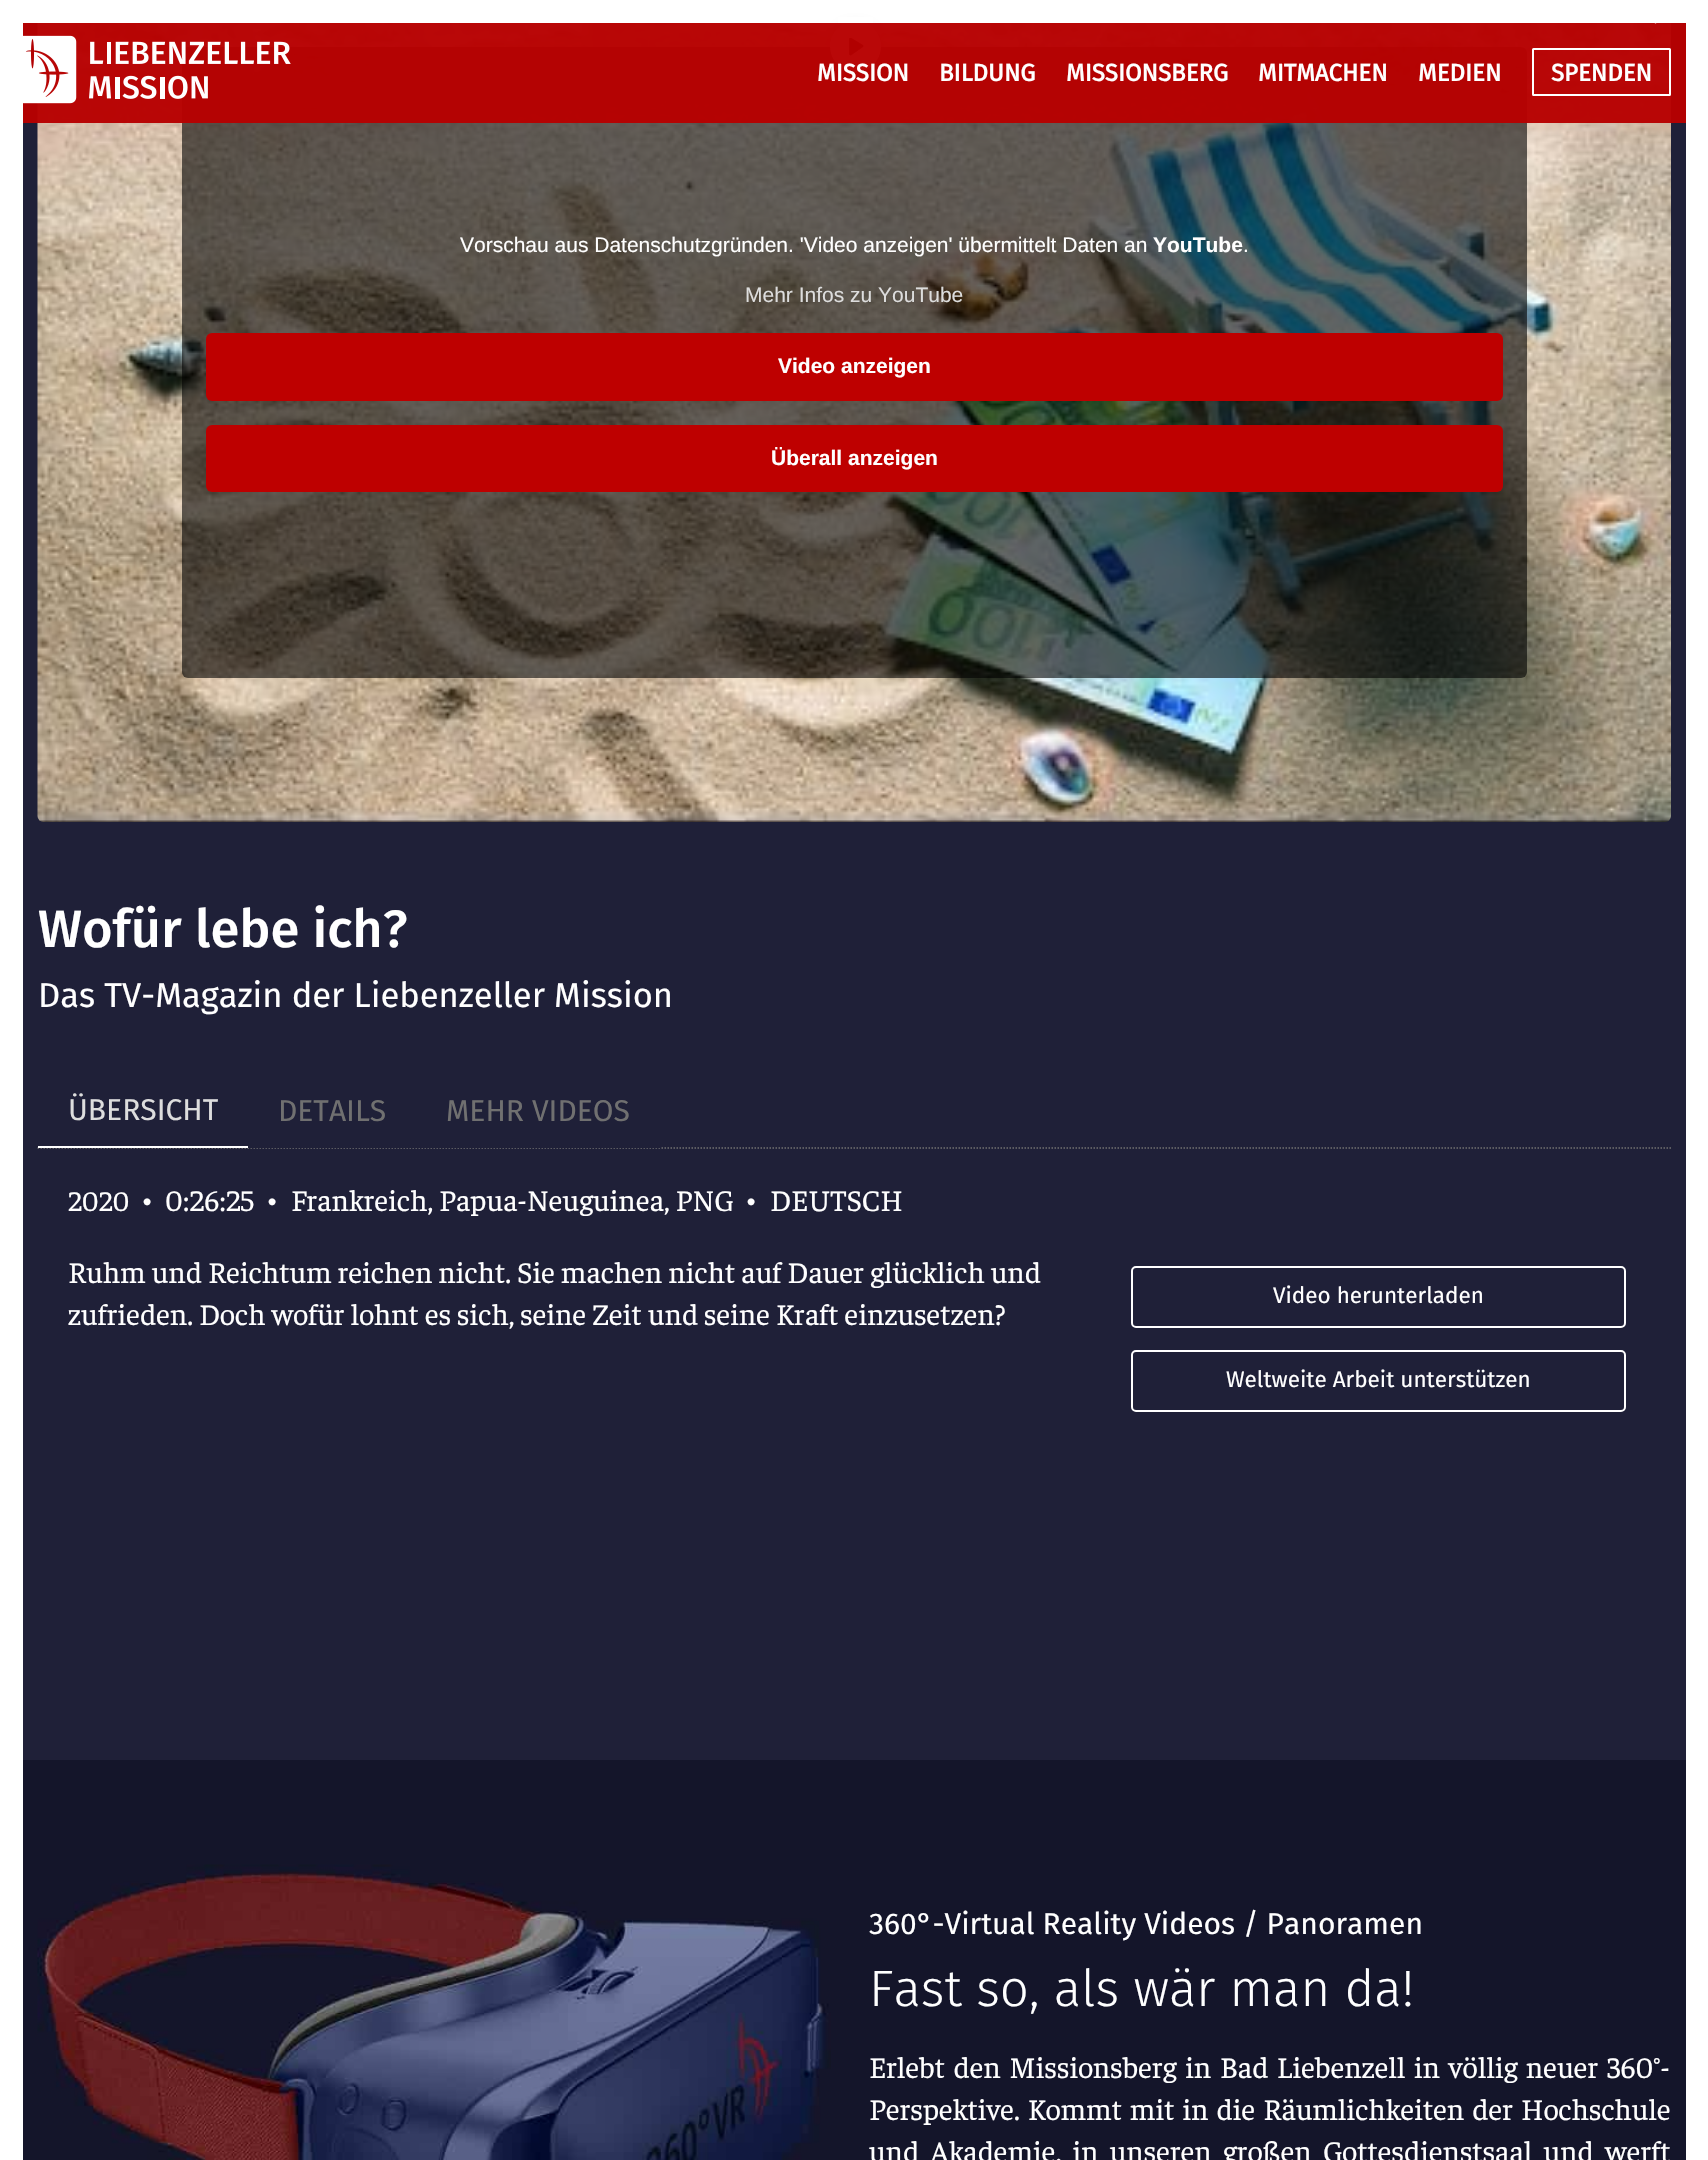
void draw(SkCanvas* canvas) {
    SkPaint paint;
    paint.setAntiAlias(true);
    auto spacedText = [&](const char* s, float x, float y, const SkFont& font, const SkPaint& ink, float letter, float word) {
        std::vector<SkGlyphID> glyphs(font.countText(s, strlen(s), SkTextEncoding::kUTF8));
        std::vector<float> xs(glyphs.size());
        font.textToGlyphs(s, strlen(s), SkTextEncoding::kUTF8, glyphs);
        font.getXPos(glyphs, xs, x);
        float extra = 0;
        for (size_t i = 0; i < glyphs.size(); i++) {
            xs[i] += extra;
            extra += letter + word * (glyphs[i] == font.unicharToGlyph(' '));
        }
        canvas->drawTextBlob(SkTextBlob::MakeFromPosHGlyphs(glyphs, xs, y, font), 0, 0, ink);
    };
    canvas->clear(0xFFFFFFFF);
    paint.setColor(0xFF1F2038);
    canvas->drawRect(SkRect::MakeXYWH(23, 23, 1663, 1737), paint);
    canvas->drawImageRect(SkImages::DeferredFromEncodedData(SkData::MakeFromFileName("img3.png")), SkRect::MakeXYWH(37, 23, 1634, 799), SkSamplingOptions());
    paint.setColor(0x99000000);
    canvas->drawRoundRect(SkRect::MakeXYWH(182, 47, 1345, 631), 6, 6, paint);
    paint.setColor(0x26000000);
    paint.setMaskFilter(SkMaskFilter::MakeBlur(kNormal_SkBlurStyle, 4));
    canvas->drawRoundRect(SkRect::MakeXYWH(830, 23, 51, 51), 25.5f, 25.5f, paint);
    paint.setMaskFilter(nullptr);
    paint.setColor(0xFFFFFFFF);
    canvas->drawCircle(855.5f, 46.5f, 25.5f, paint);
    canvas->drawRect(SkRect::MakeXYWH(838, 17, 35, 6), paint);
    paint.setColor(0xFF000000);
    canvas->drawPath(SkPathBuilder().moveTo(850.5f, 54).lineTo(850.5f, 39).lineTo(862, 46).close().detach(), paint);
    canvas->save();
    canvas->clipRect(SkRect::MakeXYWH(849, 38, 18, 18));
    paint.setStyle(SkPaint::kStroke_Style);
    paint.setStrokeWidth(2.8f);
    paint.setStrokeCap(SkPaint::kRound_Cap);
    paint.setStrokeJoin(SkPaint::kRound_Join);
    canvas->drawPath(SkPathBuilder().moveTo(850.5f, 54).lineTo(850.5f, 39).lineTo(862, 46).close().detach(), paint);
    canvas->restore();
    paint.setStyle(SkPaint::kFill_Style);
    paint.setColor(0xF7B70000);
    canvas->drawRect(SkRect::MakeXYWH(23, 23, 1663, 100), paint);
    canvas->drawImageRect(SkImages::DeferredFromEncodedData(SkData::MakeFromFileName("img1.png")), SkRect::MakeXYWH(23, 35, 268, 69), SkSamplingOptions());
    canvas->drawImageRect(SkImages::DeferredFromEncodedData(SkData::MakeFromFileName("img2.png")), SkRect::MakeXYWH(1654, 23, 3, 1), SkSamplingOptions());
    SkFont font1(fontMgr->matchFamilyStyle("Fira Sans", SkFontStyle::Bold()), 24);
    font1.setSubpixel(true);
    paint.setColor(0xFFFFFFFF);
    canvas->drawString("MISSION", 817, 81, font1, paint);
    canvas->drawString("BILDUNG", 939, 81, font1, paint);
    canvas->drawString("MISSIONSBERG", 1066, 81, font1, paint);
    canvas->drawString("MITMACHEN", 1258, 81, font1, paint);
    canvas->drawString("MEDIEN", 1418, 81, font1, paint);
    paint.setStyle(SkPaint::kStroke_Style);
    paint.setStrokeWidth(2);
    paint.setStrokeCap(SkPaint::kButt_Cap);
    paint.setStrokeJoin(SkPaint::kMiter_Join);
    canvas->drawRoundRect(SkRect::MakeXYWH(1533, 49, 137, 46), 0.5f, 0.5f, paint);
    paint.setStyle(SkPaint::kFill_Style);
    canvas->drawString("SPENDEN", 1551, 81, font1, paint);
    SkFont font2(fontMgr->matchFamilyStyle("Liberation Sans", SkFontStyle::Normal()), 21);
    font2.setSubpixel(true);
    canvas->drawString("Vorschau aus Datenschutzgründen. 'Video anzeigen' übermittelt Daten an", 460, 252, font2, paint);
    SkFont font3(fontMgr->matchFamilyStyle("Liberation Sans", SkFontStyle::Bold()), 21);
    font3.setSubpixel(true);
    canvas->drawString("YouTube", 1153, 252, font3, paint);
    canvas->drawString(".", 1243, 252, font2, paint);
    paint.setColor(0xFFDDDDDD);
    canvas->drawString("Mehr Infos zu YouTube", 745, 302, font2, paint);
    paint.setColor(0xFFBE0000);
    canvas->drawRoundRect(SkRect::MakeXYWH(206, 333, 1297, 68), 6, 6, paint);
    paint.setColor(0xFFFFFFFF);
    canvas->drawString("Video anzeigen", 778, 373, font3, paint);
    paint.setColor(0xFFBE0000);
    canvas->drawRoundRect(SkRect::MakeXYWH(206, 425, 1297, 67), 6, 6, paint);
    paint.setColor(0xFFFFFFFF);
    canvas->drawString("Überall anzeigen", 771, 465, font3, paint);
    SkFont font4(fontMgr->matchFamilyStyle("Fira Sans", SkFontStyle(500, SkFontStyle::kNormal_Width, SkFontStyle::kUpright_Slant)), 52.5f);
    font4.setSubpixel(true);
    canvas->drawString("Wofür lebe ich?", 38, 947, font4, paint);
    SkFont font5(fontMgr->matchFamilyStyle("Fira Sans", SkFontStyle::Normal()), 34.5f);
    font5.setSubpixel(true);
    canvas->drawString("Das TV-Magazin der Liebenzeller Mission", 38, 1007, font5, paint);
    paint.setStyle(SkPaint::kStroke_Style);
    paint.setStrokeWidth(1.5f);
    paint.setColor(0xFF707070);
    paint.setPathEffect(SkDashPathEffect::Make({{1.5f, 1.5f}}, 0));
    canvas->drawPath(SkPathBuilder().moveTo(37.5f, 1148).lineTo(1671, 1148).detach(), paint);
    paint.setPathEffect(nullptr);
    paint.setStyle(SkPaint::kFill_Style);
    paint.setColor(0xFF1F2038);
    canvas->drawRect(SkRect::MakeXYWH(38, 1147, 622, 1), paint);
    paint.setColor(0xFFFFFFFF);
    canvas->drawRect(SkRect::MakeXYWH(38, 1146, 210, 2), paint);
    SkFont font6(fontMgr->matchFamilyStyle("Fira Sans", SkFontStyle::Normal()), 30);
    font6.setSubpixel(true);
    paint.setColor(0xFFDDDDDD);
    canvas->drawString("ÜBERSICHT", 68, 1120, font6, paint);
    paint.setColor(0xFF707070);
    canvas->drawString("DETAILS", 278, 1121, font6, paint);
    canvas->drawString("MEHR VIDEOS", 446, 1121, font6, paint);
    SkFont font7(fontMgr->matchFamilyStyle("Faustina", SkFontStyle::Normal()), 28.5f);
    font7.setSubpixel(true);
    paint.setColor(0xFFFFFFFF);
    canvas->drawString("2020", 68, 1211, font7, paint);
    SkFont font8(fontMgr->matchFamilyStyle("Faustina", SkFontStyle::Normal()), 30);
    font8.setSubpixel(true);
    canvas->drawString("•", 141, 1211, font8, paint);
    canvas->drawString("0:26:25", 165, 1211, font8, paint);
    canvas->drawString("•", 266, 1211, font8, paint);
    canvas->drawString("Frankreich, Papua-Neuguinea, PNG", 291, 1211, font8, paint);
    canvas->drawString("•", 745, 1211, font8, paint);
    canvas->drawString("DEUTSCH", 770, 1211, font8, paint);
    canvas->drawString("Ruhm und Reichtum reichen nicht. Sie machen nicht auf Dauer glücklich und", 68, 1283, font8, paint);
    canvas->drawString("zufrieden. Doch wofür lohnt es sich, seine Zeit und seine Kraft einzusetzen?", 68, 1325, font8, paint);
    paint.setStyle(SkPaint::kStroke_Style);
    paint.setStrokeWidth(2);
    canvas->drawRoundRect(SkRect::MakeXYWH(1132, 1267, 493, 60), 4, 4, paint);
    SkFont font9(fontMgr->matchFamilyStyle("Fira Sans", SkFontStyle::Normal()), 22.5f);
    font9.setSubpixel(true);
    paint.setStyle(SkPaint::kFill_Style);
    canvas->drawString("Video herunterladen", 1273, 1303, font9, paint);
    paint.setStyle(SkPaint::kStroke_Style);
    canvas->drawRoundRect(SkRect::MakeXYWH(1132, 1351, 493, 60), 4, 4, paint);
    paint.setStyle(SkPaint::kFill_Style);
    canvas->drawString("Weltweite Arbeit unterstützen", 1226, 1387, font9, paint);
    paint.setColor(0xFF14152A);
    canvas->drawRect(SkRect::MakeXYWH(23, 1760, 1663, 400), paint);
    canvas->drawImageRect(SkImages::DeferredFromEncodedData(SkData::MakeFromFileName("img4.png")), SkRect::MakeXYWH(37, 1864, 794, 296), SkSamplingOptions());
    paint.setColor(0xFFFFFFFF);
    canvas->drawString("360°-Virtual Reality Videos / Panoramen", 869, 1934, font6, paint);
    SkFont font10(fontMgr->matchFamilyStyle("Fira Sans", SkFontStyle(300, SkFontStyle::kNormal_Width, SkFontStyle::kUpright_Slant)), 51);
    font10.setSubpixel(true);
    canvas->drawString("Fast so, als wär man da!", 869, 2006, font10, paint);
    spacedText("Erlebt den Missionsberg in Bad Liebenzell in völlig neuer 360°-", 869, 2078, font8, paint, 0, 2.5f);
    spacedText("Perspektive. Kommt mit in die Räumlichkeiten der Hochschule", 869, 2120, font8, paint, 0, 2);
    spacedText("und Akademie, in unseren großen Gottesdienstsaal und werft", 869, 2162, font8, paint, 0, 5.25f);
}
